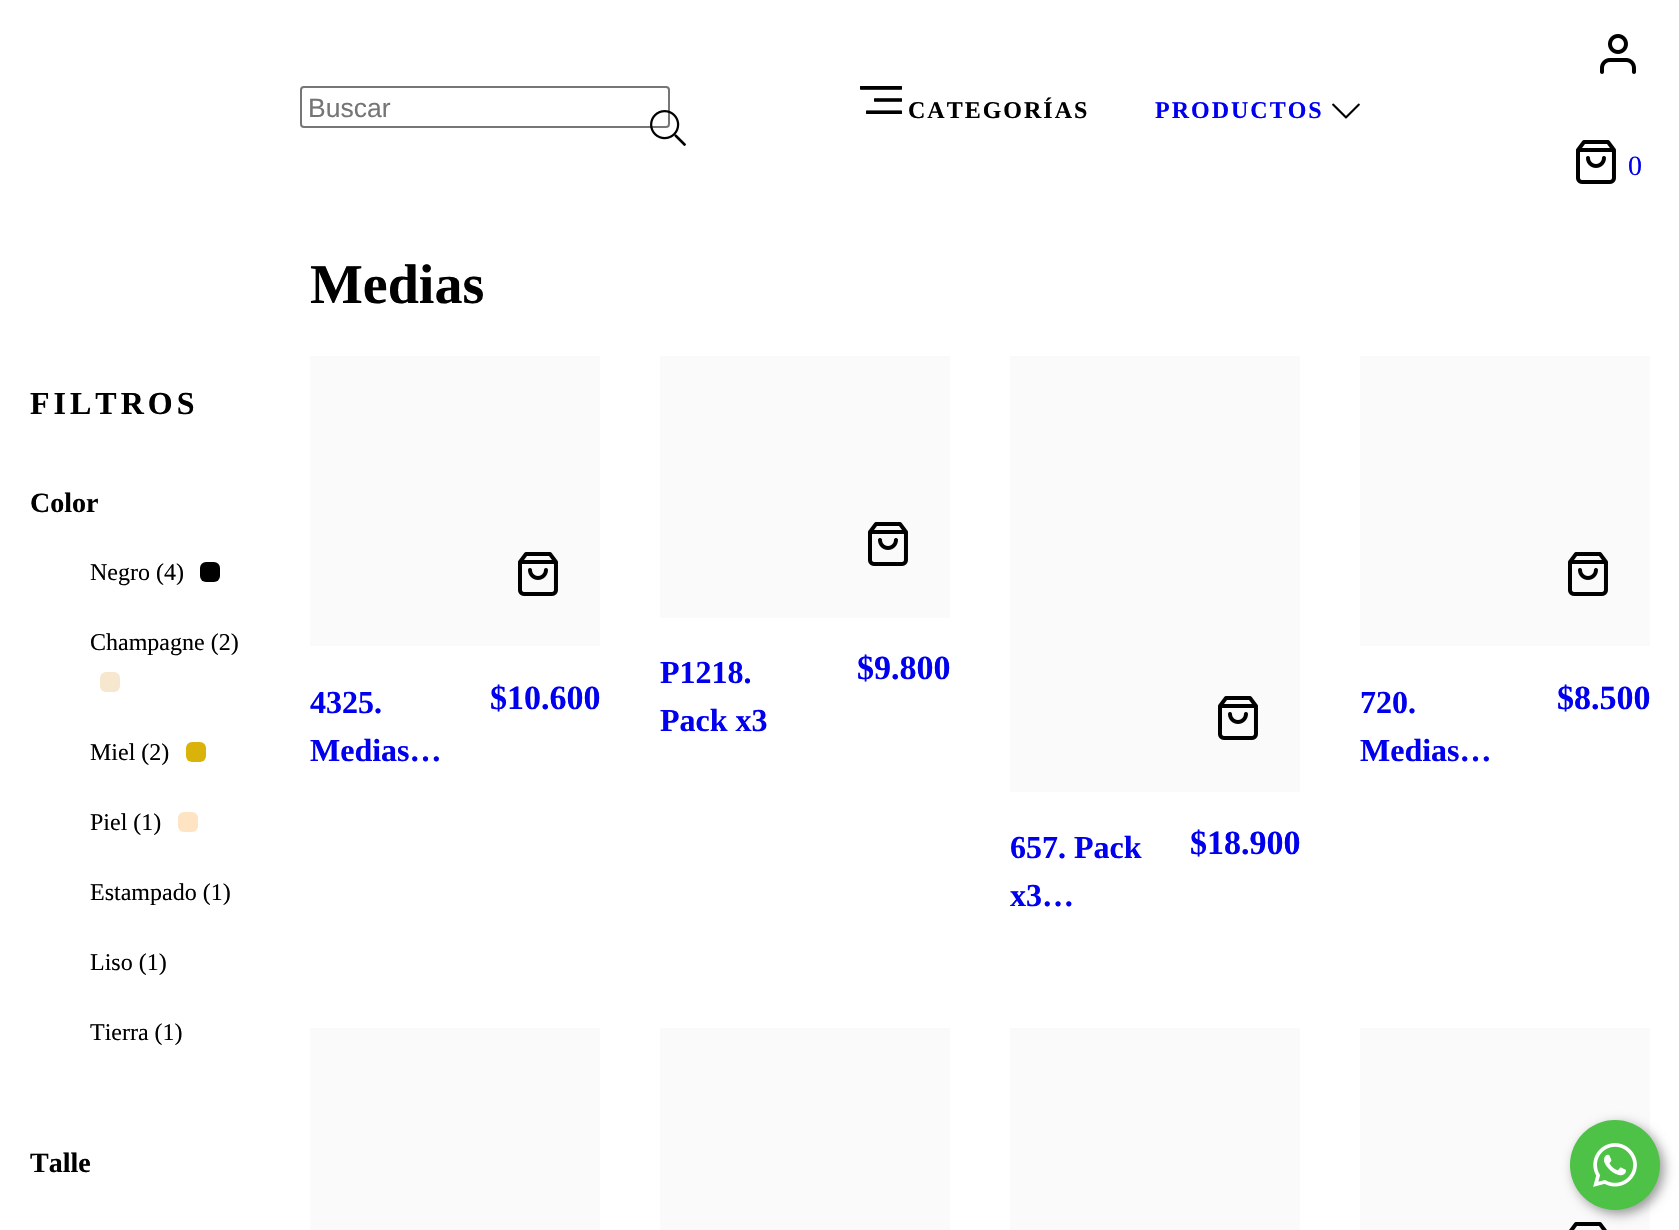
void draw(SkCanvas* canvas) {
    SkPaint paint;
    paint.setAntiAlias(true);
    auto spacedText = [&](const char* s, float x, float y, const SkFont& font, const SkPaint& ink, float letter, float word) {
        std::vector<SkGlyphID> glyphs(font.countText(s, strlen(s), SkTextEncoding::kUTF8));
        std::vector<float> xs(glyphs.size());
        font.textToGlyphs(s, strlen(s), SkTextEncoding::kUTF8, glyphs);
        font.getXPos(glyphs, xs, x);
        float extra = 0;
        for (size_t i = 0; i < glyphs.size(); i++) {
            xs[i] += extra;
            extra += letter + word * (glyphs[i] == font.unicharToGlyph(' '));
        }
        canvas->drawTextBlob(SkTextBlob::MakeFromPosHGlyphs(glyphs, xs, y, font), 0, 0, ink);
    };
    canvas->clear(0xFFFFFFFF);
    paint.setStyle(SkPaint::kStroke_Style);
    paint.setStrokeWidth(2);
    paint.setColor(0xFF767676);
    canvas->drawRoundRect(SkRect::MakeXYWH(301, 87, 368, 40), 3, 3, paint);
    SkFont font1(fontMgr->matchFamilyStyle("Liberation Sans", SkFontStyle::Normal()), 26.5f);
    font1.setSubpixel(true);
    paint.setStyle(SkPaint::kFill_Style);
    paint.setColor(0xFF757575);
    canvas->drawString("Buscar", 308, 117, font1, paint);
    canvas->drawImageRect(SkImages::DeferredFromEncodedData(SkData::MakeFromFileName("img1.png")), SkRect::MakeXYWH(650, 110, 36, 36), SkSamplingOptions());
    canvas->drawImageRect(SkImages::DeferredFromEncodedData(SkData::MakeFromFileName("img2.png")), SkRect::MakeXYWH(860, 86, 42, 28), SkSamplingOptions());
    SkFont font2(fontMgr->matchFamilyStyle("Liberation Serif", SkFontStyle::Bold()), 24);
    font2.setSubpixel(true);
    paint.setColor(0xFF000000);
    spacedText("CATEGORÍAS", 908, 118, font2, paint, 2, 0);
    paint.setColor(0xFF0000EE);
    spacedText("PRODUCTOS", 1155, 118, font2, paint, 2, 0);
    canvas->drawImageRect(SkImages::DeferredFromEncodedData(SkData::MakeFromFileName("img3.png")), SkRect::MakeXYWH(1332, 103, 28, 16), SkSamplingOptions());
    canvas->drawImageRect(SkImages::DeferredFromEncodedData(SkData::MakeFromFileName("img4.png")), SkRect::MakeXYWH(1600, 34, 36, 40), SkSamplingOptions());
    canvas->drawImageRect(SkImages::DeferredFromEncodedData(SkData::MakeFromFileName("img5.png")), SkRect::MakeXYWH(1576, 140, 40, 44), SkSamplingOptions());
    SkFont font3(fontMgr->matchFamilyStyle("Liberation Serif", SkFontStyle::Normal()), 28);
    font3.setSubpixel(true);
    canvas->drawString("0", 1628, 175, font3, paint);
    SkFont font4(fontMgr->matchFamilyStyle("Liberation Serif", SkFontStyle::Bold()), 32);
    font4.setSubpixel(true);
    paint.setColor(0xFF000000);
    spacedText("FILTROS", 30, 414, font4, paint, 4, 0);
    SkFont font5(fontMgr->matchFamilyStyle("Liberation Serif", SkFontStyle::Bold()), 28);
    font5.setSubpixel(true);
    canvas->drawString("Color", 30, 512, font5, paint);
    SkFont font6(fontMgr->matchFamilyStyle("Liberation Serif", SkFontStyle::Normal()), 24);
    font6.setSubpixel(true);
    canvas->drawString("Negro (4)", 90, 580, font6, paint);
    canvas->drawRoundRect(SkRect::MakeXYWH(200, 562, 20, 20), 6, 6, paint);
    canvas->drawString("Champagne (2)", 90, 650, font6, paint);
    paint.setColor(0xFFF7E7CE);
    canvas->drawRoundRect(SkRect::MakeXYWH(100, 672, 20, 20), 6, 6, paint);
    paint.setColor(0xFF000000);
    canvas->drawString("Miel (2)", 90, 760, font6, paint);
    paint.setColor(0xFFDAB30A);
    canvas->drawRoundRect(SkRect::MakeXYWH(186, 742, 20, 20), 6, 6, paint);
    paint.setColor(0xFF000000);
    canvas->drawString("Piel (1)", 90, 830, font6, paint);
    paint.setColor(0xFFFFE4C4);
    canvas->drawRoundRect(SkRect::MakeXYWH(178, 812, 20, 20), 6, 6, paint);
    paint.setColor(0xFF000000);
    canvas->drawString("Estampado (1)", 90, 900, font6, paint);
    canvas->drawString("Liso (1)", 90, 970, font6, paint);
    canvas->drawString("Tierra (1)", 90, 1040, font6, paint);
    canvas->drawString("Talle", 30, 1172, font5, paint);
    SkFont font7(fontMgr->matchFamilyStyle("Liberation Serif", SkFontStyle::Bold()), 56);
    font7.setSubpixel(true);
    canvas->drawString("Medias", 310, 303, font7, paint);
    paint.setColor(0xFFFAFAFA);
    canvas->drawRect(SkRect::MakeXYWH(310, 356, 290, 290), paint);
    canvas->drawImageRect(SkImages::DeferredFromEncodedData(SkData::MakeFromFileName("img6.png")), SkRect::MakeXYWH(518, 552, 40, 44), SkSamplingOptions());
    paint.setColor(0xFF0000EE);
    canvas->drawString("4325.", 310, 713, font4, paint);
    canvas->drawString("Medias…", 310, 761, font4, paint);
    SkFont font8(fontMgr->matchFamilyStyle("Liberation Serif", SkFontStyle::Bold()), 34);
    font8.setSubpixel(true);
    canvas->drawString("$10.600", 490, 709, font8, paint);
    paint.setColor(0xFFFAFAFA);
    canvas->drawRect(SkRect::MakeXYWH(660, 356, 290, 262), paint);
    canvas->drawImageRect(SkImages::DeferredFromEncodedData(SkData::MakeFromFileName("img6.png")), SkRect::MakeXYWH(868, 522, 40, 44), SkSamplingOptions());
    paint.setColor(0xFF0000EE);
    canvas->drawString("P1218.", 660, 683, font4, paint);
    canvas->drawString("Pack x3", 660, 731, font4, paint);
    canvas->drawString("$9.800", 857, 679, font8, paint);
    paint.setColor(0xFFFAFAFA);
    canvas->drawRect(SkRect::MakeXYWH(1360, 356, 290, 290), paint);
    canvas->drawImageRect(SkImages::DeferredFromEncodedData(SkData::MakeFromFileName("img6.png")), SkRect::MakeXYWH(1568, 552, 40, 44), SkSamplingOptions());
    paint.setColor(0xFF0000EE);
    canvas->drawString("720.", 1360, 713, font4, paint);
    canvas->drawString("Medias…", 1360, 761, font4, paint);
    canvas->drawString("$8.500", 1557, 709, font8, paint);
    paint.setColor(0xFFFAFAFA);
    canvas->drawRect(SkRect::MakeXYWH(1010, 356, 290, 436), paint);
    canvas->drawImageRect(SkImages::DeferredFromEncodedData(SkData::MakeFromFileName("img6.png")), SkRect::MakeXYWH(1218, 696, 40, 44), SkSamplingOptions());
    paint.setColor(0xFF0000EE);
    canvas->drawString("657. Pack", 1010, 858, font4, paint);
    canvas->drawString("x3…", 1010, 906, font4, paint);
    canvas->drawString("$18.900", 1190, 854, font8, paint);
    paint.setColor(0xFFFAFAFA);
    canvas->drawRect(SkRect::MakeXYWH(310, 1028, 290, 202), paint);
    canvas->drawRect(SkRect::MakeXYWH(660, 1028, 290, 202), paint);
    canvas->drawRect(SkRect::MakeXYWH(1010, 1028, 290, 202), paint);
    canvas->drawRect(SkRect::MakeXYWH(1360, 1028, 290, 202), paint);
    canvas->drawImageRect(SkImages::DeferredFromEncodedData(SkData::MakeFromFileName("img7.png")), SkRect::MakeXYWH(1569, 1222, 38, 8), SkSamplingOptions());
    paint.setColor(0x66000000);
    paint.setMaskFilter(SkMaskFilter::MakeBlur(kNormal_SkBlurStyle, 6));
    canvas->drawRoundRect(SkRect::MakeXYWH(1574, 1124, 90, 90), 45, 45, paint);
    paint.setMaskFilter(nullptr);
    paint.setColor(0xFF4DC247);
    canvas->drawCircle(1615, 1165, 45, paint);
    canvas->drawImageRect(SkImages::DeferredFromEncodedData(SkData::MakeFromFileName("img8.png")), SkRect::MakeXYWH(1593, 1143, 44, 44), SkSamplingOptions());
}
